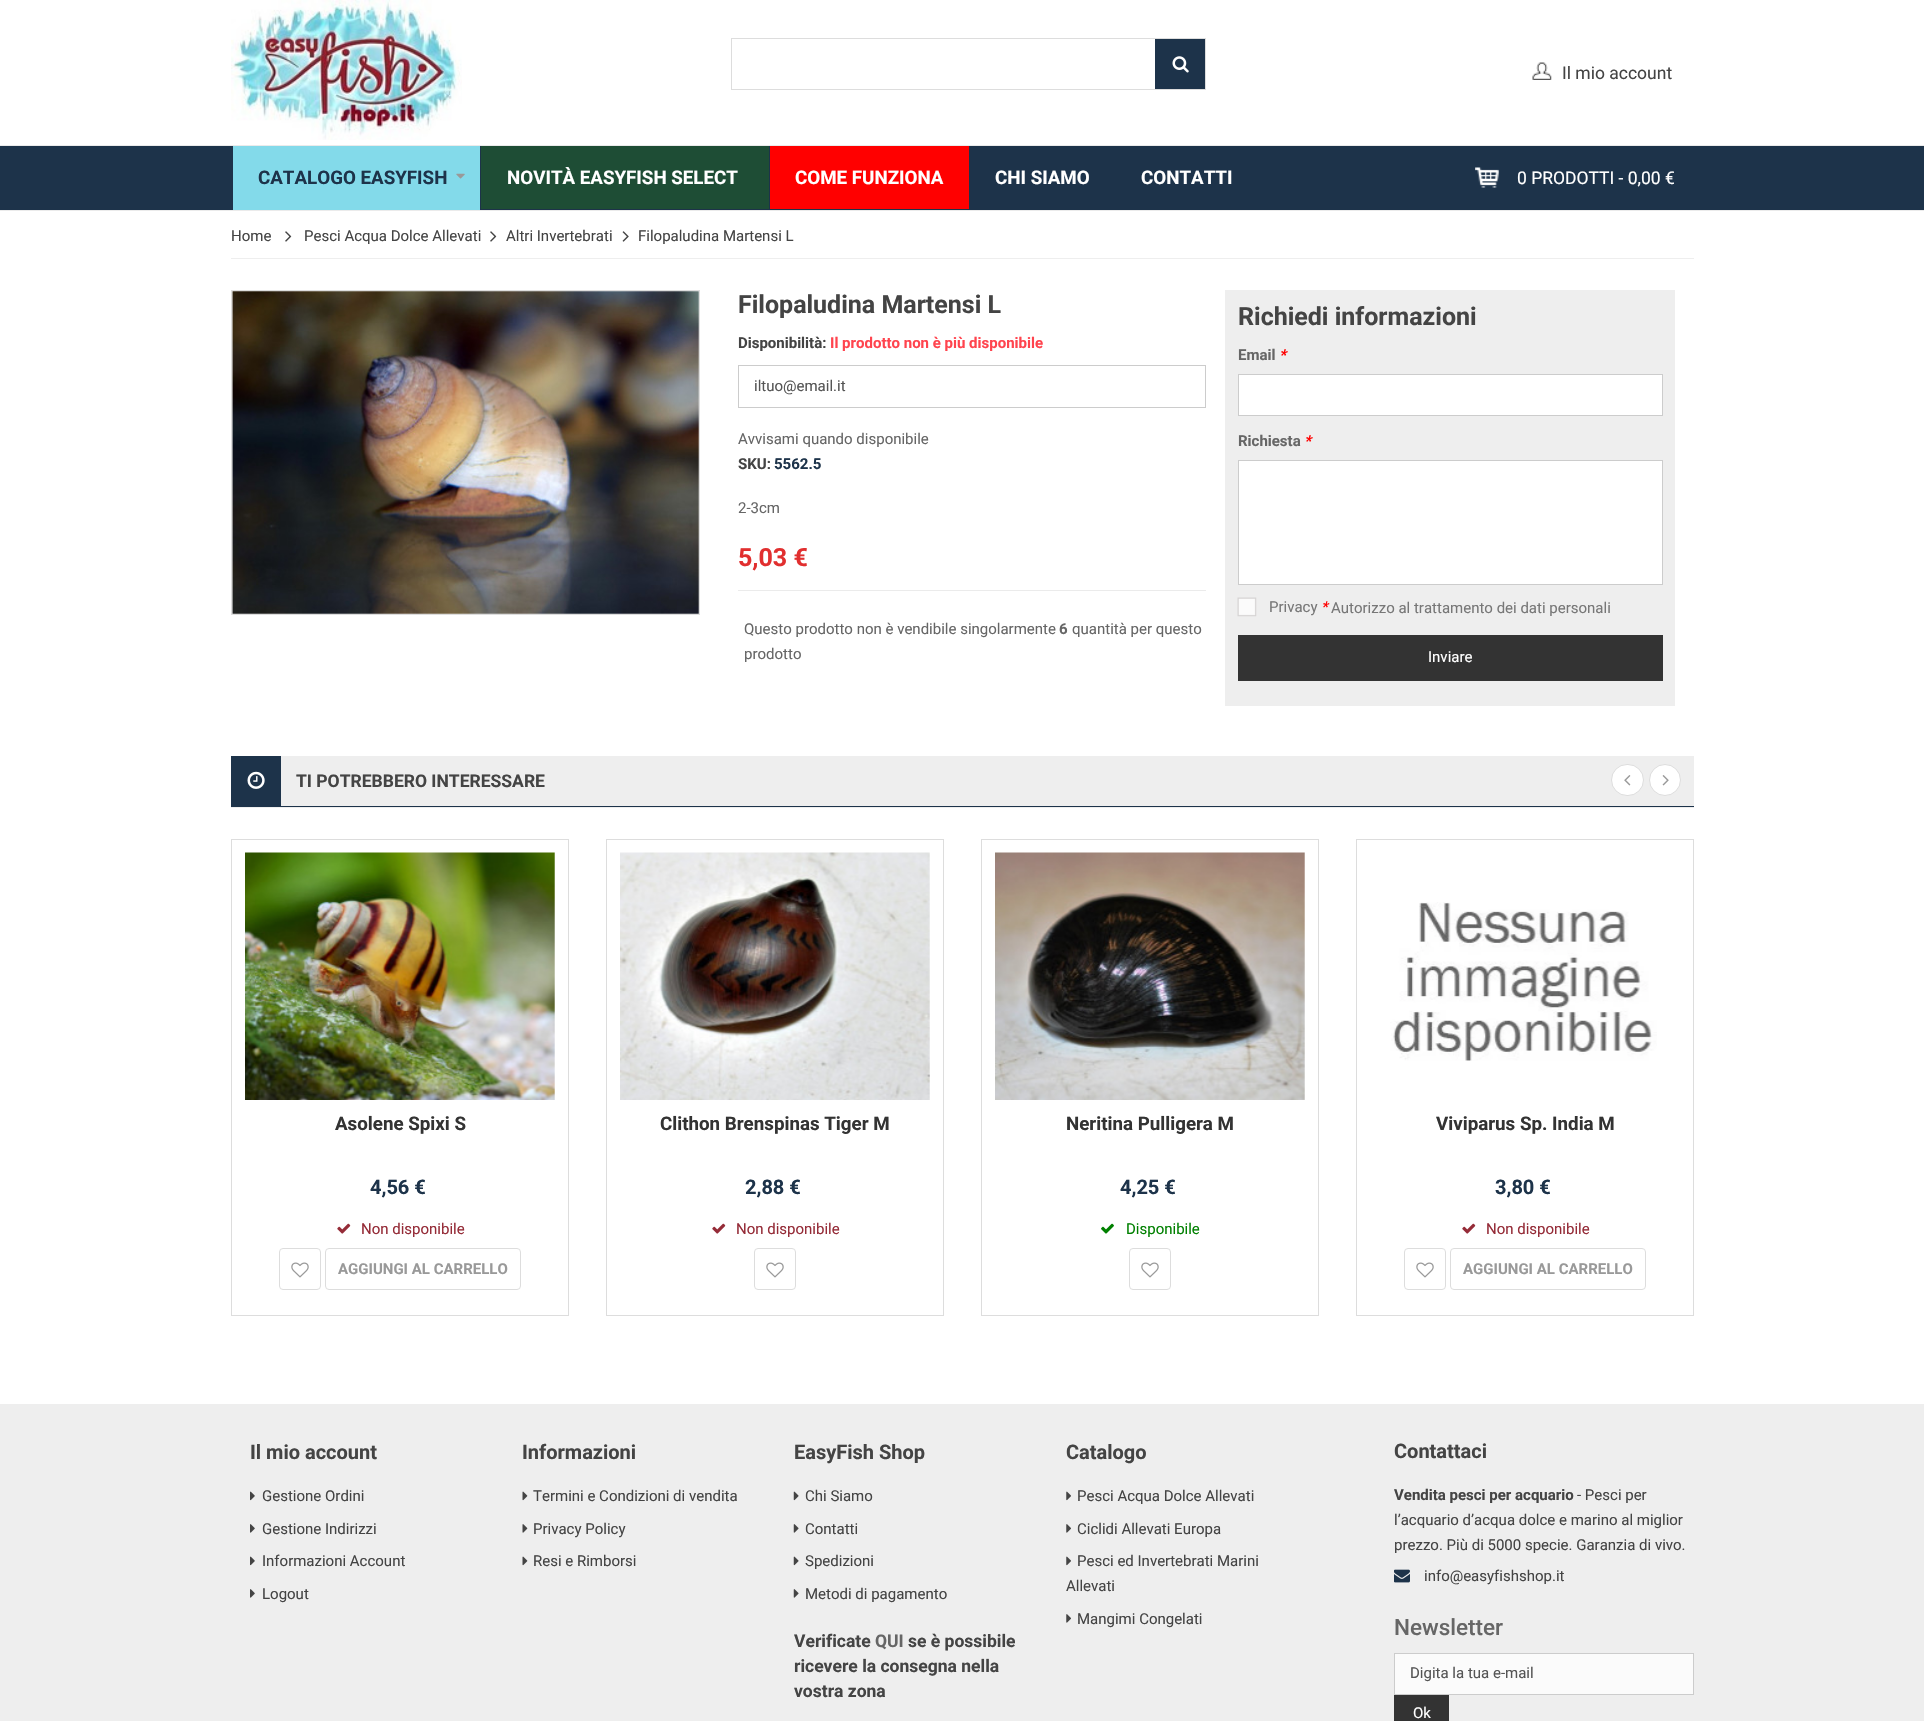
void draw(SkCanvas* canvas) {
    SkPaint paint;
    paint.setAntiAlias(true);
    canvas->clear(0xFFFFFFFF);
    paint.setColor(0xFFEBEBEB);
    canvas->drawRect(SkRect::MakeXYWH(0, 145, 1924, 1), paint);
    canvas->drawImageRect(SkImages::DeferredFromEncodedData(SkData::MakeFromFileName("img1.png")), SkRect::MakeXYWH(231, 0, 231, 140), SkSamplingOptions());
    paint.setStyle(SkPaint::kStroke_Style);
    paint.setStrokeWidth(1);
    paint.setColor(0xFFDDDDDD);
    canvas->drawRect(SkRect::MakeXYWH(731.5f, 38.5f, 474, 51), paint);
    paint.setStyle(SkPaint::kFill_Style);
    paint.setColor(0xFF1D334A);
    canvas->drawRect(SkRect::MakeXYWH(1155, 39, 50, 50), paint);
    canvas->drawImageRect(SkImages::DeferredFromEncodedData(SkData::MakeFromFileName("img2.png")), SkRect::MakeXYWH(1172, 56, 17, 17), SkSamplingOptions());
    canvas->drawImageRect(SkImages::DeferredFromEncodedData(SkData::MakeFromFileName("img3.png")), SkRect::MakeXYWH(1532, 62, 20, 18), SkSamplingOptions());
    SkFont font1(fontMgr->matchFamilyStyle("Roboto", SkFontStyle::Normal()), 17.5f);
    font1.setSubpixel(true);
    paint.setColor(0xFF444444);
    canvas->drawString("Il mio account", 1562, 79, font1, paint);
    paint.setColor(0xFF1D334A);
    canvas->drawRect(SkRect::MakeXYWH(0, 146, 1924, 64), paint);
    paint.setColor(0xFFEBEBEB);
    canvas->drawRect(SkRect::MakeXYWH(0, 210, 1924, 1), paint);
    paint.setColor(0xFF83DAEA);
    canvas->drawRect(SkRect::MakeXYWH(233, 146, 247, 64), paint);
    SkFont font2(fontMgr->matchFamilyStyle("Roboto", SkFontStyle::Bold()), 18.75f);
    font2.setSubpixel(true);
    paint.setColor(0xFF1D334A);
    canvas->drawString("CATALOGO EASYFISH", 258, 184, font2, paint);
    canvas->drawImageRect(SkImages::DeferredFromEncodedData(SkData::MakeFromFileName("img4.png")), SkRect::MakeXYWH(456, 173, 9, 6), SkSamplingOptions());
    paint.setColor(0xFF1E4D35);
    canvas->drawRect(SkRect::MakeXYWH(481, 146, 288, 63), paint);
    paint.setColor(0xFFFFFFFF);
    canvas->drawString("NOVITÀ EASYFISH SELECT", 507, 184, font2, paint);
    paint.setColor(0xFFFF0000);
    canvas->drawRect(SkRect::MakeXYWH(770, 146, 199, 63), paint);
    paint.setColor(0xFFFFFFFF);
    canvas->drawString("COME FUNZIONA", 795, 184, font2, paint);
    canvas->drawString("CHI SIAMO", 995, 184, font2, paint);
    canvas->drawString("CONTATTI", 1141, 184, font2, paint);
    canvas->drawImageRect(SkImages::DeferredFromEncodedData(SkData::MakeFromFileName("img5.png")), SkRect::MakeXYWH(1475, 167, 24, 21), SkSamplingOptions());
    canvas->drawString("0 PRODOTTI - 0,00 €", 1517, 184, font1, paint);
    paint.setColor(0xFFEEEEEE);
    canvas->drawRect(SkRect::MakeXYWH(231, 258, 1463, 1), paint);
    SkFont font3(fontMgr->matchFamilyStyle("Roboto", SkFontStyle::Normal()), 15);
    font3.setSubpixel(true);
    paint.setColor(0xFF444444);
    canvas->drawString("Home", 231, 241, font3, paint);
    canvas->drawImageRect(SkImages::DeferredFromEncodedData(SkData::MakeFromFileName("img6.png")), SkRect::MakeXYWH(285, 231, 7, 11), SkSamplingOptions());
    canvas->drawString("Pesci Acqua Dolce Allevati", 304, 241, font3, paint);
    canvas->drawImageRect(SkImages::DeferredFromEncodedData(SkData::MakeFromFileName("img6.png")), SkRect::MakeXYWH(490, 231, 7, 11), SkSamplingOptions());
    canvas->drawString("Altri Invertebrati", 506, 241, font3, paint);
    canvas->drawImageRect(SkImages::DeferredFromEncodedData(SkData::MakeFromFileName("img7.png")), SkRect::MakeXYWH(622, 231, 7, 11), SkSamplingOptions());
    canvas->drawString("Filopaludina Martensi L", 638, 241, font3, paint);
    paint.setStyle(SkPaint::kStroke_Style);
    paint.setColor(0xFFDDDDDD);
    canvas->drawRect(SkRect::MakeXYWH(231.5f, 290.5f, 468, 324), paint);
    canvas->drawImageRect(SkImages::DeferredFromEncodedData(SkData::MakeFromFileName("img8.png")), SkRect::MakeXYWH(232, 291, 467, 323), SkSamplingOptions());
    SkFont font4(fontMgr->matchFamilyStyle("Roboto", SkFontStyle::Bold()), 25);
    font4.setSubpixel(true);
    paint.setStyle(SkPaint::kFill_Style);
    paint.setColor(0xFF444444);
    canvas->drawString("Filopaludina Martensi L", 738, 313, font4, paint);
    SkFont font5(fontMgr->matchFamilyStyle("Roboto", SkFontStyle::Bold()), 15);
    font5.setSubpixel(true);
    canvas->drawString("Disponibilità:", 738, 348, font5, paint);
    paint.setColor(0xFFFF444E);
    canvas->drawString("Il prodotto non è più disponibile", 830, 348, font5, paint);
    paint.setStyle(SkPaint::kStroke_Style);
    paint.setColor(0xFFCCCCCC);
    canvas->drawRect(SkRect::MakeXYWH(738.5f, 365.5f, 467, 42), paint);
    paint.setStyle(SkPaint::kFill_Style);
    paint.setColor(0xFF555555);
    canvas->drawString("iltuo@email.it", 754, 391, font3, paint);
    paint.setColor(0xFF666666);
    canvas->drawString("Avvisami quando disponibile", 738, 444, font3, paint);
    paint.setColor(0xFF444444);
    canvas->drawString("SKU:", 738, 469, font5, paint);
    paint.setColor(0xFF1D334A);
    canvas->drawString("5562.5", 774, 469, font5, paint);
    paint.setColor(0xFF666666);
    canvas->drawString("2-3cm", 738, 513, font3, paint);
    paint.setColor(0xFFEBEBEB);
    canvas->drawRect(SkRect::MakeXYWH(738, 590, 468, 1), paint);
    paint.setColor(0xFFE12F2F);
    canvas->drawString("5,03 €", 738, 566, font4, paint);
    paint.setColor(0xFF666666);
    canvas->drawString("Questo prodotto non è vendibile singolarmente", 744, 634, font3, paint);
    canvas->drawString("6", 1059, 634, font5, paint);
    canvas->drawString("quantità per questo", 1072, 634, font3, paint);
    canvas->drawString("prodotto", 744, 659, font3, paint);
    paint.setColor(0xFFEEEEEE);
    canvas->drawRect(SkRect::MakeXYWH(1225, 290, 450, 416), paint);
    paint.setColor(0xFF444444);
    canvas->drawString("Richiedi informazioni", 1238, 325, font4, paint);
    paint.setColor(0xFF666666);
    canvas->drawString("Email", 1238, 360, font5, paint);
    SkFont font6(fontMgr->matchFamilyStyle("Roboto", SkFontStyle::BoldItalic()), 15);
    font6.setSubpixel(true);
    paint.setColor(0xFFFF0000);
    canvas->drawString("*", 1279, 360, font6, paint);
    paint.setColor(0xFFFFFFFF);
    canvas->drawRect(SkRect::MakeXYWH(1238.5f, 374.5f, 424, 41), paint);
    paint.setStyle(SkPaint::kStroke_Style);
    paint.setColor(0xFFCCCCCC);
    canvas->drawRect(SkRect::MakeXYWH(1238.5f, 374.5f, 424, 41), paint);
    paint.setStyle(SkPaint::kFill_Style);
    paint.setColor(0xFF666666);
    canvas->drawString("Richiesta", 1238, 446, font5, paint);
    paint.setColor(0xFFFF0000);
    canvas->drawString("*", 1304, 446, font6, paint);
    paint.setColor(0xFFFFFFFF);
    canvas->drawRect(SkRect::MakeXYWH(1238.5f, 460.5f, 424, 124), paint);
    paint.setStyle(SkPaint::kStroke_Style);
    paint.setColor(0xFFCCCCCC);
    canvas->drawRect(SkRect::MakeXYWH(1238.5f, 460.5f, 424, 124), paint);
    paint.setStyle(SkPaint::kFill_Style);
    paint.setColor(0xFF777777);
    canvas->drawString("Privacy", 1269, 612, font3, paint);
    SkFont font7(fontMgr->matchFamilyStyle("Roboto", SkFontStyle::Italic()), 15);
    font7.setSubpixel(true);
    paint.setColor(0xFFFF0000);
    canvas->drawString("*", 1321, 612, font7, paint);
    canvas->drawImageRect(SkImages::DeferredFromEncodedData(SkData::MakeFromFileName("img9.png")), SkRect::MakeXYWH(1237, 597, 20, 20), SkSamplingOptions());
    paint.setColor(0xFF777777);
    canvas->drawString("Autorizzo al trattamento dei dati personali", 1331, 613, font3, paint);
    paint.setColor(0xFF333333);
    canvas->drawRect(SkRect::MakeXYWH(1238, 635, 425, 46), paint);
    paint.setColor(0xFFFFFFFF);
    canvas->drawString("Inviare", 1428, 662, font3, paint);
    paint.setColor(0xFFEEEEEE);
    canvas->drawRect(SkRect::MakeXYWH(231, 756, 1463, 52), paint);
    paint.setColor(0xFF1D334A);
    canvas->drawRect(SkRect::MakeXYWH(231, 806, 1463, 1), paint);
    canvas->drawRect(SkRect::MakeXYWH(231, 756, 50, 50), paint);
    canvas->drawImageRect(SkImages::DeferredFromEncodedData(SkData::MakeFromFileName("img10.png")), SkRect::MakeXYWH(247, 771, 18, 18), SkSamplingOptions());
    SkFont font8(fontMgr->matchFamilyStyle("Roboto", SkFontStyle::Bold()), 17.5f);
    font8.setSubpixel(true);
    paint.setColor(0xFF444444);
    canvas->drawString("TI POTREBBERO INTERESSARE", 296, 787, font8, paint);
    paint.setColor(0xFFFFFFFF);
    canvas->drawRoundRect(SkRect::MakeXYWH(1611.5f, 764.5f, 32, 31), 15.5f, 15.5f, paint);
    paint.setStyle(SkPaint::kStroke_Style);
    paint.setColor(0xFFDDDDDD);
    canvas->drawRoundRect(SkRect::MakeXYWH(1611.5f, 764.5f, 32, 31), 15.5f, 15.5f, paint);
    canvas->drawImageRect(SkImages::DeferredFromEncodedData(SkData::MakeFromFileName("img11.png")), SkRect::MakeXYWH(1624, 775, 7, 11), SkSamplingOptions());
    paint.setStyle(SkPaint::kFill_Style);
    paint.setColor(0xFFFFFFFF);
    canvas->drawCircle(1665, 780, 15.5f, paint);
    paint.setStyle(SkPaint::kStroke_Style);
    paint.setColor(0xFFDDDDDD);
    canvas->drawCircle(1665, 780, 15.5f, paint);
    canvas->drawImageRect(SkImages::DeferredFromEncodedData(SkData::MakeFromFileName("img12.png")), SkRect::MakeXYWH(1662, 775, 7, 11), SkSamplingOptions());
    canvas->drawRect(SkRect::MakeXYWH(231.5f, 839.5f, 337, 476), paint);
    canvas->drawImageRect(SkImages::DeferredFromEncodedData(SkData::MakeFromFileName("img13.png")), SkRect::MakeXYWH(245, 852, 310, 248), SkSamplingOptions());
    paint.setStyle(SkPaint::kFill_Style);
    paint.setColor(0xFF333333);
    canvas->drawString("Asolene Spixi S", 335, 1130, font2, paint);
    SkFont font9(fontMgr->matchFamilyStyle("Roboto", SkFontStyle::Bold()), 20);
    font9.setSubpixel(true);
    paint.setColor(0xFF1D334A);
    canvas->drawString("4,56 €", 370, 1194, font9, paint);
    canvas->drawImageRect(SkImages::DeferredFromEncodedData(SkData::MakeFromFileName("img14.png")), SkRect::MakeXYWH(337, 1223, 14, 11), SkSamplingOptions());
    paint.setColor(0xFF952C38);
    canvas->drawString("Non disponibile", 361, 1234, font3, paint);
    paint.setStyle(SkPaint::kStroke_Style);
    paint.setColor(0xFFDDDDDD);
    canvas->drawRoundRect(SkRect::MakeXYWH(279.5f, 1248.5f, 41, 41), 3.5f, 3.5f, paint);
    canvas->drawImageRect(SkImages::DeferredFromEncodedData(SkData::MakeFromFileName("img15.png")), SkRect::MakeXYWH(291, 1262, 18, 16), SkSamplingOptions());
    canvas->drawRoundRect(SkRect::MakeXYWH(325.5f, 1248.5f, 195, 41), 3.5f, 3.5f, paint);
    paint.setStyle(SkPaint::kFill_Style);
    paint.setColor(0xFF999999);
    canvas->drawString("AGGIUNGI AL CARRELLO", 338, 1274, font5, paint);
    paint.setStyle(SkPaint::kStroke_Style);
    paint.setColor(0xFFDDDDDD);
    canvas->drawRect(SkRect::MakeXYWH(606.5f, 839.5f, 337, 476), paint);
    canvas->drawImageRect(SkImages::DeferredFromEncodedData(SkData::MakeFromFileName("img16.png")), SkRect::MakeXYWH(620, 852, 310, 248), SkSamplingOptions());
    paint.setStyle(SkPaint::kFill_Style);
    paint.setColor(0xFF333333);
    canvas->drawString("Clithon Brenspinas Tiger M", 660, 1130, font2, paint);
    paint.setColor(0xFF1D334A);
    canvas->drawString("2,88 €", 745, 1194, font9, paint);
    canvas->drawImageRect(SkImages::DeferredFromEncodedData(SkData::MakeFromFileName("img14.png")), SkRect::MakeXYWH(712, 1223, 14, 11), SkSamplingOptions());
    paint.setColor(0xFF952C38);
    canvas->drawString("Non disponibile", 736, 1234, font3, paint);
    paint.setStyle(SkPaint::kStroke_Style);
    paint.setColor(0xFFDDDDDD);
    canvas->drawRoundRect(SkRect::MakeXYWH(754.5f, 1248.5f, 41, 41), 3.5f, 3.5f, paint);
    canvas->drawImageRect(SkImages::DeferredFromEncodedData(SkData::MakeFromFileName("img15.png")), SkRect::MakeXYWH(766, 1262, 18, 16), SkSamplingOptions());
    canvas->drawRect(SkRect::MakeXYWH(981.5f, 839.5f, 337, 476), paint);
    canvas->drawImageRect(SkImages::DeferredFromEncodedData(SkData::MakeFromFileName("img17.png")), SkRect::MakeXYWH(995, 852, 310, 248), SkSamplingOptions());
    paint.setStyle(SkPaint::kFill_Style);
    paint.setColor(0xFF333333);
    canvas->drawString("Neritina Pulligera M", 1066, 1130, font2, paint);
    paint.setColor(0xFF1D334A);
    canvas->drawString("4,25 €", 1120, 1194, font9, paint);
    canvas->drawImageRect(SkImages::DeferredFromEncodedData(SkData::MakeFromFileName("img18.png")), SkRect::MakeXYWH(1101, 1223, 13, 11), SkSamplingOptions());
    paint.setColor(0xFF008000);
    canvas->drawString("Disponibile", 1126, 1234, font3, paint);
    paint.setStyle(SkPaint::kStroke_Style);
    paint.setColor(0xFFDDDDDD);
    canvas->drawRoundRect(SkRect::MakeXYWH(1129.5f, 1248.5f, 41, 41), 3.5f, 3.5f, paint);
    canvas->drawImageRect(SkImages::DeferredFromEncodedData(SkData::MakeFromFileName("img15.png")), SkRect::MakeXYWH(1141, 1262, 18, 16), SkSamplingOptions());
    canvas->drawRect(SkRect::MakeXYWH(1356.5f, 839.5f, 337, 476), paint);
    canvas->drawImageRect(SkImages::DeferredFromEncodedData(SkData::MakeFromFileName("img19.png")), SkRect::MakeXYWH(1390, 902, 267, 159), SkSamplingOptions());
    paint.setStyle(SkPaint::kFill_Style);
    paint.setColor(0xFF333333);
    canvas->drawString("Viviparus Sp. India M", 1436, 1130, font2, paint);
    paint.setColor(0xFF1D334A);
    canvas->drawString("3,80 €", 1495, 1194, font9, paint);
    canvas->drawImageRect(SkImages::DeferredFromEncodedData(SkData::MakeFromFileName("img14.png")), SkRect::MakeXYWH(1462, 1223, 14, 11), SkSamplingOptions());
    paint.setColor(0xFF952C38);
    canvas->drawString("Non disponibile", 1486, 1234, font3, paint);
    paint.setStyle(SkPaint::kStroke_Style);
    paint.setColor(0xFFDDDDDD);
    canvas->drawRoundRect(SkRect::MakeXYWH(1404.5f, 1248.5f, 41, 41), 3.5f, 3.5f, paint);
    canvas->drawImageRect(SkImages::DeferredFromEncodedData(SkData::MakeFromFileName("img15.png")), SkRect::MakeXYWH(1416, 1262, 18, 16), SkSamplingOptions());
    canvas->drawRoundRect(SkRect::MakeXYWH(1450.5f, 1248.5f, 195, 41), 3.5f, 3.5f, paint);
    paint.setStyle(SkPaint::kFill_Style);
    paint.setColor(0xFF999999);
    canvas->drawString("AGGIUNGI AL CARRELLO", 1463, 1274, font5, paint);
    paint.setColor(0xFFEEEEEE);
    canvas->drawRect(SkRect::MakeXYWH(0, 1404, 1924, 317), paint);
    paint.setColor(0xFF444444);
    canvas->drawString("Il mio account", 250, 1459, font9, paint);
    canvas->drawImageRect(SkImages::DeferredFromEncodedData(SkData::MakeFromFileName("img20.png")), SkRect::MakeXYWH(250, 1491, 5, 10), SkSamplingOptions());
    canvas->drawString("Gestione Ordini", 262, 1501, font3, paint);
    canvas->drawImageRect(SkImages::DeferredFromEncodedData(SkData::MakeFromFileName("img21.png")), SkRect::MakeXYWH(250, 1524, 5, 9), SkSamplingOptions());
    canvas->drawString("Gestione Indirizzi", 262, 1534, font3, paint);
    canvas->drawImageRect(SkImages::DeferredFromEncodedData(SkData::MakeFromFileName("img20.png")), SkRect::MakeXYWH(250, 1556, 5, 10), SkSamplingOptions());
    canvas->drawString("Informazioni Account", 262, 1566, font3, paint);
    canvas->drawImageRect(SkImages::DeferredFromEncodedData(SkData::MakeFromFileName("img21.png")), SkRect::MakeXYWH(250, 1589, 5, 9), SkSamplingOptions());
    canvas->drawString("Logout", 262, 1599, font3, paint);
    canvas->drawString("Informazioni", 522, 1459, font9, paint);
    canvas->drawImageRect(SkImages::DeferredFromEncodedData(SkData::MakeFromFileName("img22.png")), SkRect::MakeXYWH(522, 1491, 6, 10), SkSamplingOptions());
    canvas->drawString("Termini e Condizioni di vendita", 533, 1501, font3, paint);
    canvas->drawImageRect(SkImages::DeferredFromEncodedData(SkData::MakeFromFileName("img23.png")), SkRect::MakeXYWH(522, 1524, 6, 9), SkSamplingOptions());
    canvas->drawString("Privacy Policy", 533, 1534, font3, paint);
    canvas->drawImageRect(SkImages::DeferredFromEncodedData(SkData::MakeFromFileName("img22.png")), SkRect::MakeXYWH(522, 1556, 6, 10), SkSamplingOptions());
    canvas->drawString("Resi e Rimborsi", 533, 1566, font3, paint);
    canvas->drawString("EasyFish Shop", 794, 1459, font9, paint);
    canvas->drawImageRect(SkImages::DeferredFromEncodedData(SkData::MakeFromFileName("img24.png")), SkRect::MakeXYWH(793, 1491, 6, 10), SkSamplingOptions());
    canvas->drawString("Chi Siamo", 805, 1501, font3, paint);
    canvas->drawImageRect(SkImages::DeferredFromEncodedData(SkData::MakeFromFileName("img25.png")), SkRect::MakeXYWH(793, 1524, 6, 9), SkSamplingOptions());
    canvas->drawString("Contatti", 805, 1534, font3, paint);
    canvas->drawImageRect(SkImages::DeferredFromEncodedData(SkData::MakeFromFileName("img24.png")), SkRect::MakeXYWH(793, 1556, 6, 10), SkSamplingOptions());
    canvas->drawString("Spedizioni", 805, 1566, font3, paint);
    canvas->drawImageRect(SkImages::DeferredFromEncodedData(SkData::MakeFromFileName("img25.png")), SkRect::MakeXYWH(793, 1589, 6, 9), SkSamplingOptions());
    canvas->drawString("Metodi di pagamento", 805, 1599, font3, paint);
    canvas->drawString("Verificate", 794, 1647, font8, paint);
    paint.setColor(0xFF666666);
    canvas->drawString("QUI", 875, 1647, font8, paint);
    paint.setColor(0xFF444444);
    canvas->drawString("se è possibile", 908, 1647, font8, paint);
    canvas->drawString("ricevere la consegna nella", 794, 1672, font8, paint);
    canvas->drawString("vostra zona", 794, 1697, font8, paint);
    canvas->drawString("Catalogo", 1066, 1459, font9, paint);
    canvas->drawImageRect(SkImages::DeferredFromEncodedData(SkData::MakeFromFileName("img26.png")), SkRect::MakeXYWH(1066, 1491, 5, 10), SkSamplingOptions());
    canvas->drawString("Pesci Acqua Dolce Allevati", 1077, 1501, font3, paint);
    canvas->drawImageRect(SkImages::DeferredFromEncodedData(SkData::MakeFromFileName("img27.png")), SkRect::MakeXYWH(1066, 1524, 5, 9), SkSamplingOptions());
    canvas->drawString("Ciclidi Allevati Europa", 1077, 1534, font3, paint);
    canvas->drawImageRect(SkImages::DeferredFromEncodedData(SkData::MakeFromFileName("img26.png")), SkRect::MakeXYWH(1066, 1556, 5, 10), SkSamplingOptions());
    canvas->drawString("Pesci ed Invertebrati Marini", 1077, 1566, font3, paint);
    canvas->drawString("Allevati", 1066, 1591, font3, paint);
    canvas->drawImageRect(SkImages::DeferredFromEncodedData(SkData::MakeFromFileName("img27.png")), SkRect::MakeXYWH(1066, 1614, 5, 9), SkSamplingOptions());
    canvas->drawString("Mangimi Congelati", 1077, 1624, font3, paint);
    canvas->drawString("Contattaci", 1394, 1458, font9, paint);
    canvas->drawString("Vendita pesci per acquario", 1394, 1500, font5, paint);
    canvas->drawString("- Pesci per", 1577, 1500, font3, paint);
    canvas->drawString("l’acquario d’acqua dolce e marino al miglior", 1394, 1525, font3, paint);
    canvas->drawString("prezzo. Più di 5000 specie. Garanzia di vivo.", 1394, 1550, font3, paint);
    canvas->drawImageRect(SkImages::DeferredFromEncodedData(SkData::MakeFromFileName("img28.png")), SkRect::MakeXYWH(1394, 1569, 16, 14), SkSamplingOptions());
    canvas->drawString("info@easyfishshop.it", 1424, 1581, font3, paint);
    SkFont font10(fontMgr->matchFamilyStyle("Roboto", SkFontStyle(500, SkFontStyle::kNormal_Width, SkFontStyle::kUpright_Slant)), 22.5f);
    font10.setSubpixel(true);
    paint.setColor(0xFF666666);
    canvas->drawString("Newsletter", 1394, 1635, font10, paint);
    paint.setColor(0xFFFBFBFB);
    canvas->drawRect(SkRect::MakeXYWH(1394.5f, 1653.5f, 299, 41), paint);
    paint.setStyle(SkPaint::kStroke_Style);
    paint.setColor(0xFFCCCCCC);
    canvas->drawRect(SkRect::MakeXYWH(1394.5f, 1653.5f, 299, 41), paint);
    paint.setStyle(SkPaint::kFill_Style);
    paint.setColor(0xFF555555);
    canvas->drawString("Digita la tua e-mail", 1410, 1678, font3, paint);
    paint.setColor(0xFF333333);
    canvas->drawRect(SkRect::MakeXYWH(1394, 1695, 55, 26), paint);
    paint.setColor(0xFFFFFFFF);
    canvas->drawString("Ok", 1413, 1718, font3, paint);
}
